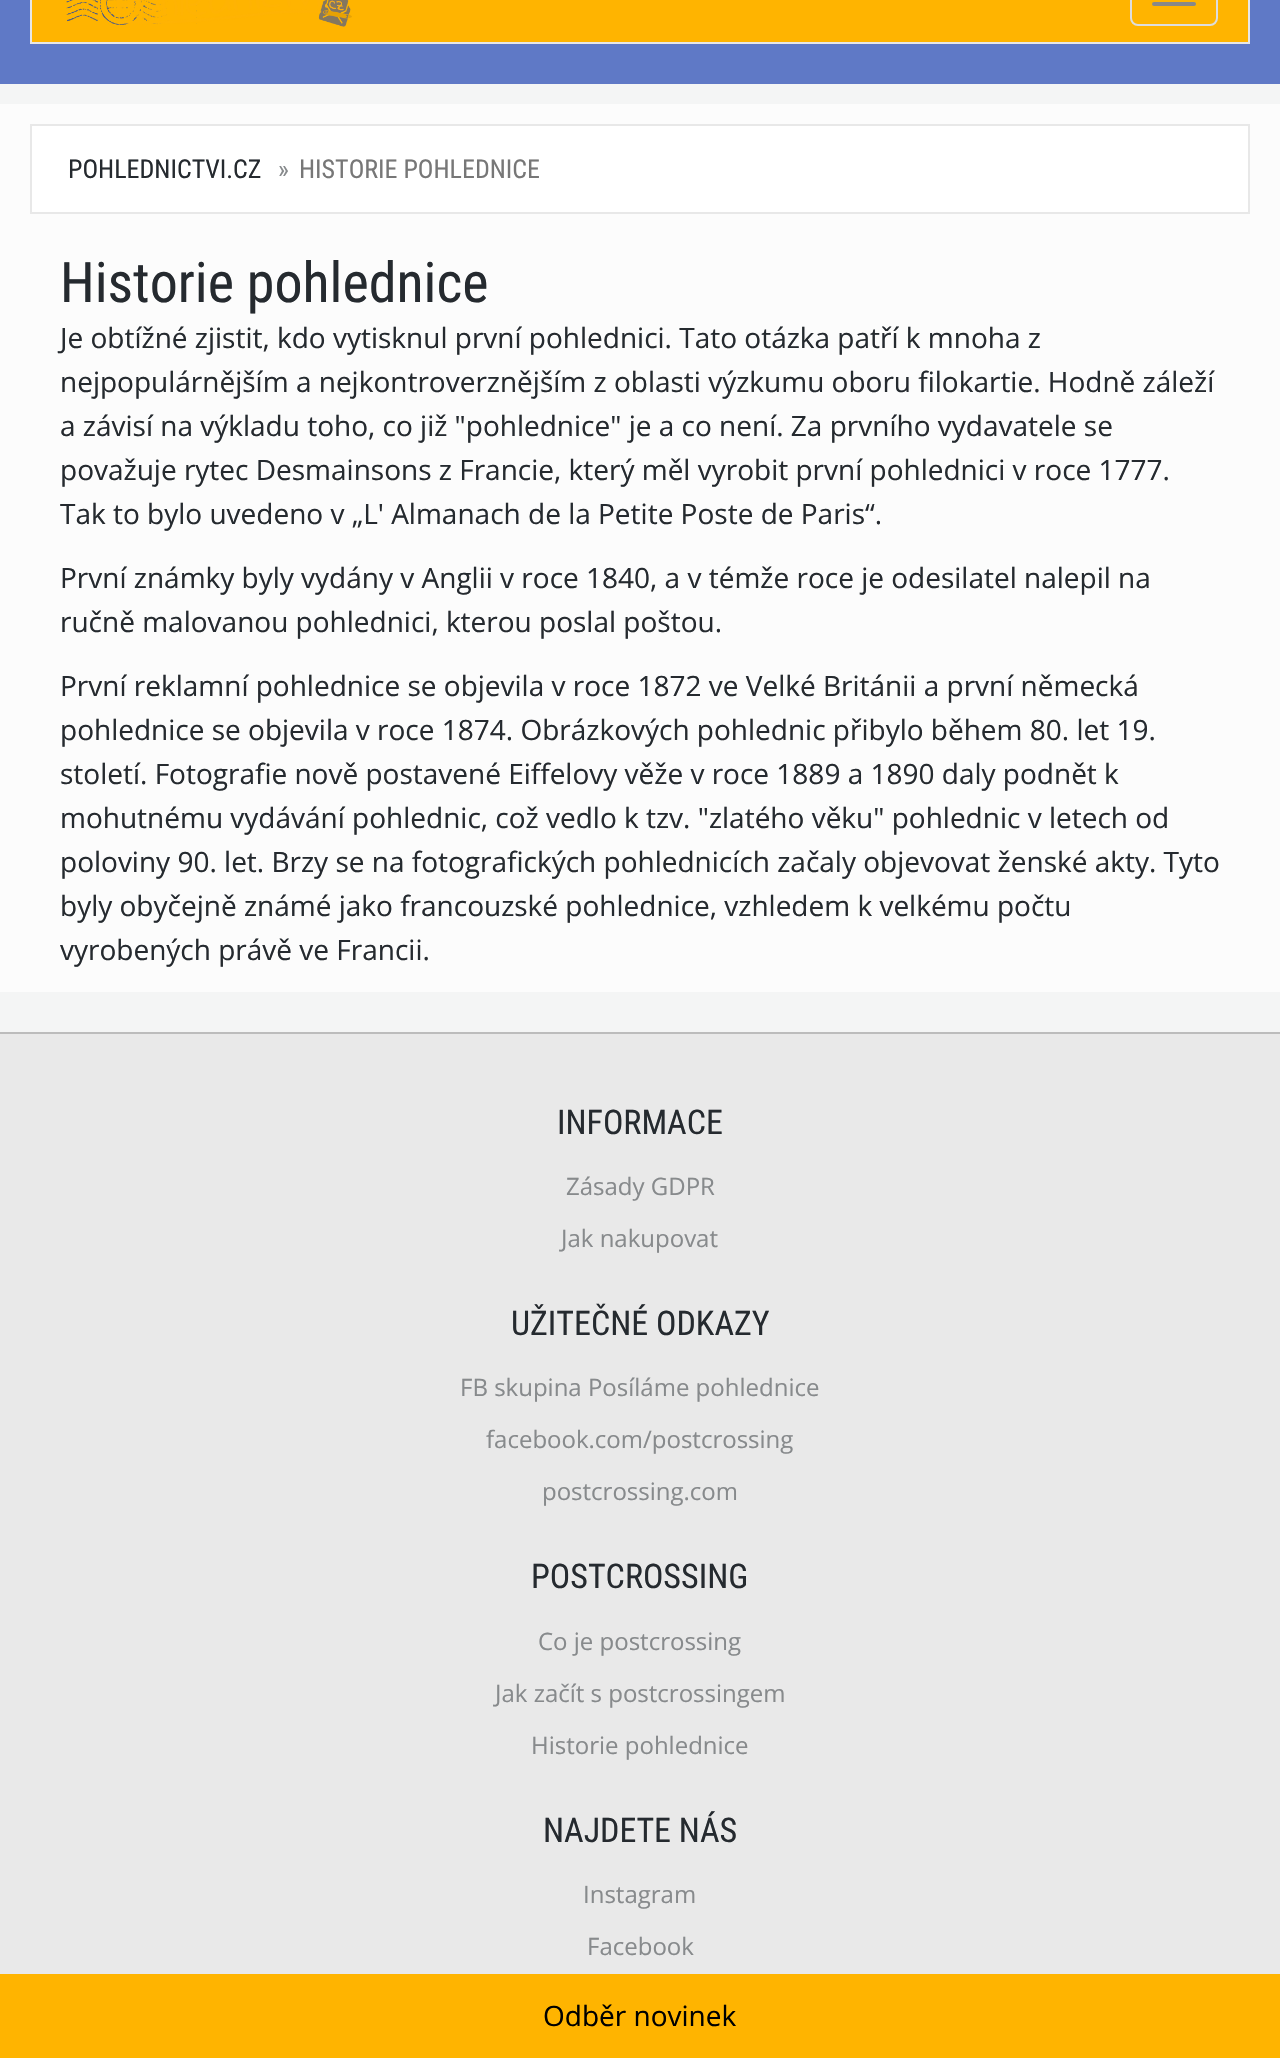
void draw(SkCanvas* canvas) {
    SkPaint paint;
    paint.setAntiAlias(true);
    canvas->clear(0xFFF4F5F5);
    paint.setColor(0xFF5F79C6);
    canvas->drawRect(SkRect::MakeXYWH(0, 0, 1280, 84), paint);
    paint.setColor(0xFFFFB400);
    canvas->drawRect(SkRect::MakeXYWH(31, -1, 1218, 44), paint);
    paint.setStyle(SkPaint::kStroke_Style);
    paint.setStrokeWidth(2);
    paint.setColor(0xFFE7E7E7);
    canvas->drawRect(SkRect::MakeXYWH(31, -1, 1218, 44), paint);
    canvas->drawImageRect(SkImages::DeferredFromEncodedData(SkData::MakeFromFileName("img1.png")), SkRect::MakeXYWH(66, 0, 286, 27), SkSamplingOptions());
    paint.setColor(0xFFDDDDDD);
    canvas->drawRoundRect(SkRect::MakeXYWH(1131, -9, 86, 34), 7, 7, paint);
    paint.setStyle(SkPaint::kFill_Style);
    paint.setColor(0xFF888888);
    canvas->drawRoundRect(SkRect::MakeXYWH(1152, 2, 44, 4), 2, 2, paint);
    paint.setColor(0xFFFCFCFC);
    canvas->drawRect(SkRect::MakeXYWH(0, 104, 1280, 888), paint);
    paint.setColor(0xFFFFFFFF);
    canvas->drawRect(SkRect::MakeXYWH(31, 125, 1218, 88), paint);
    paint.setStyle(SkPaint::kStroke_Style);
    paint.setColor(0xFFE8E8E8);
    canvas->drawRect(SkRect::MakeXYWH(31, 125, 1218, 88), paint);
    SkFont font1(fontMgr->matchFamilyStyle("Roboto Condensed", SkFontStyle::Normal()), 26);
    font1.setSubpixel(true);
    paint.setStyle(SkPaint::kFill_Style);
    paint.setColor(0xFF252A2F);
    canvas->drawString("POHLEDNICTVI.CZ", 68, 178, font1, paint);
    paint.setColor(0xFF878A8C);
    canvas->drawString("»", 278, 178, font1, paint);
    paint.setColor(0xFF777777);
    canvas->drawString("HISTORIE POHLEDNICE", 299, 178, font1, paint);
    SkFont font2(fontMgr->matchFamilyStyle("Roboto Condensed", SkFontStyle::Normal()), 56);
    font2.setSubpixel(true);
    paint.setColor(0xFF252A2F);
    canvas->drawString("Historie pohlednice", 60, 302, font2, paint);
    SkFont font3(fontMgr->matchFamilyStyle("Open Sans", SkFontStyle::Normal()), 28);
    font3.setSubpixel(true);
    canvas->drawString("Je obtížné zjistit, kdo vytisknul první pohlednici. Tato otázka patří k mnoha z", 60, 348, font3, paint);
    canvas->drawString("nejpopulárnějším a nejkontroverznějším z oblasti výzkumu oboru filokartie. Hodně záleží", 60, 392, font3, paint);
    canvas->drawString("a závisí na výkladu toho, co již \"pohlednice\" je a co není. Za prvního vydavatele se", 60, 436, font3, paint);
    canvas->drawString("považuje rytec Desmainsons z Francie, který měl vyrobit první pohlednici v roce 1777.", 60, 480, font3, paint);
    canvas->drawString("Tak to bylo uvedeno v „L' Almanach de la Petite Poste de Paris“.", 60, 524, font3, paint);
    canvas->drawString("První známky byly vydány v Anglii v roce 1840, a v témže roce je odesilatel nalepil na", 60, 588, font3, paint);
    canvas->drawString("ručně malovanou pohlednici, kterou poslal poštou.", 60, 632, font3, paint);
    canvas->drawString("První reklamní pohlednice se objevila v roce 1872 ve Velké Británii a první německá", 60, 696, font3, paint);
    canvas->drawString("pohlednice se objevila v roce 1874. Obrázkových pohlednic přibylo během 80. let 19.", 60, 740, font3, paint);
    canvas->drawString("století. Fotografie nově postavené Eiffelovy věže v roce 1889 a 1890 daly podnět k", 60, 784, font3, paint);
    canvas->drawString("mohutnému vydávání pohlednic, což vedlo k tzv. \"zlatého věku\" pohlednic v letech od", 60, 828, font3, paint);
    canvas->drawString("poloviny 90. let. Brzy se na fotografických pohlednicích začaly objevovat ženské akty. Tyto", 60, 872, font3, paint);
    canvas->drawString("byly obyčejně známé jako francouzské pohlednice, vzhledem k velkému počtu", 60, 916, font3, paint);
    canvas->drawString("vyrobených právě ve Francii.", 60, 960, font3, paint);
    paint.setColor(0xFFE9E9E9);
    canvas->drawRect(SkRect::MakeXYWH(0, 1034, 1280, 940), paint);
    paint.setColor(0xFFBCBCBC);
    canvas->drawRect(SkRect::MakeXYWH(0, 1032, 1280, 2), paint);
    SkFont font4(fontMgr->matchFamilyStyle("Roboto Condensed", SkFontStyle::Normal()), 34);
    font4.setSubpixel(true);
    paint.setColor(0xFF252A2F);
    canvas->drawString("INFORMACE", 557, 1134, font4, paint);
    SkFont font5(fontMgr->matchFamilyStyle("Open Sans", SkFontStyle::Normal()), 24);
    font5.setSubpixel(true);
    paint.setColor(0xFF878A8C);
    canvas->drawString("Zásady GDPR", 566, 1195, font5, paint);
    canvas->drawString("Jak nakupovat", 561, 1247, font5, paint);
    paint.setColor(0xFF252A2F);
    canvas->drawString("UŽITEČNÉ ODKAZY", 511, 1335, font4, paint);
    paint.setColor(0xFF878A8C);
    canvas->drawString("FB skupina Posíláme pohlednice", 460, 1396, font5, paint);
    canvas->drawString("facebook.com/postcrossing", 486, 1448, font5, paint);
    canvas->drawString("postcrossing.com", 542, 1500, font5, paint);
    paint.setColor(0xFF252A2F);
    canvas->drawString("POSTCROSSING", 531, 1588, font4, paint);
    paint.setColor(0xFF878A8C);
    canvas->drawString("Co je postcrossing", 538, 1650, font5, paint);
    canvas->drawString("Jak začít s postcrossingem", 495, 1702, font5, paint);
    canvas->drawString("Historie pohlednice", 531, 1754, font5, paint);
    paint.setColor(0xFF252A2F);
    canvas->drawString("NAJDETE NÁS", 543, 1842, font4, paint);
    paint.setColor(0xFF878A8C);
    canvas->drawString("Instagram", 583, 1903, font5, paint);
    canvas->drawString("Facebook", 587, 1955, font5, paint);
    paint.setColor(0xFFFFB400);
    canvas->drawRect(SkRect::MakeXYWH(0, 1974, 1280, 84), paint);
    paint.setColor(0xFF000000);
    canvas->drawString("Odběr novinek", 543, 2026, font3, paint);
}
